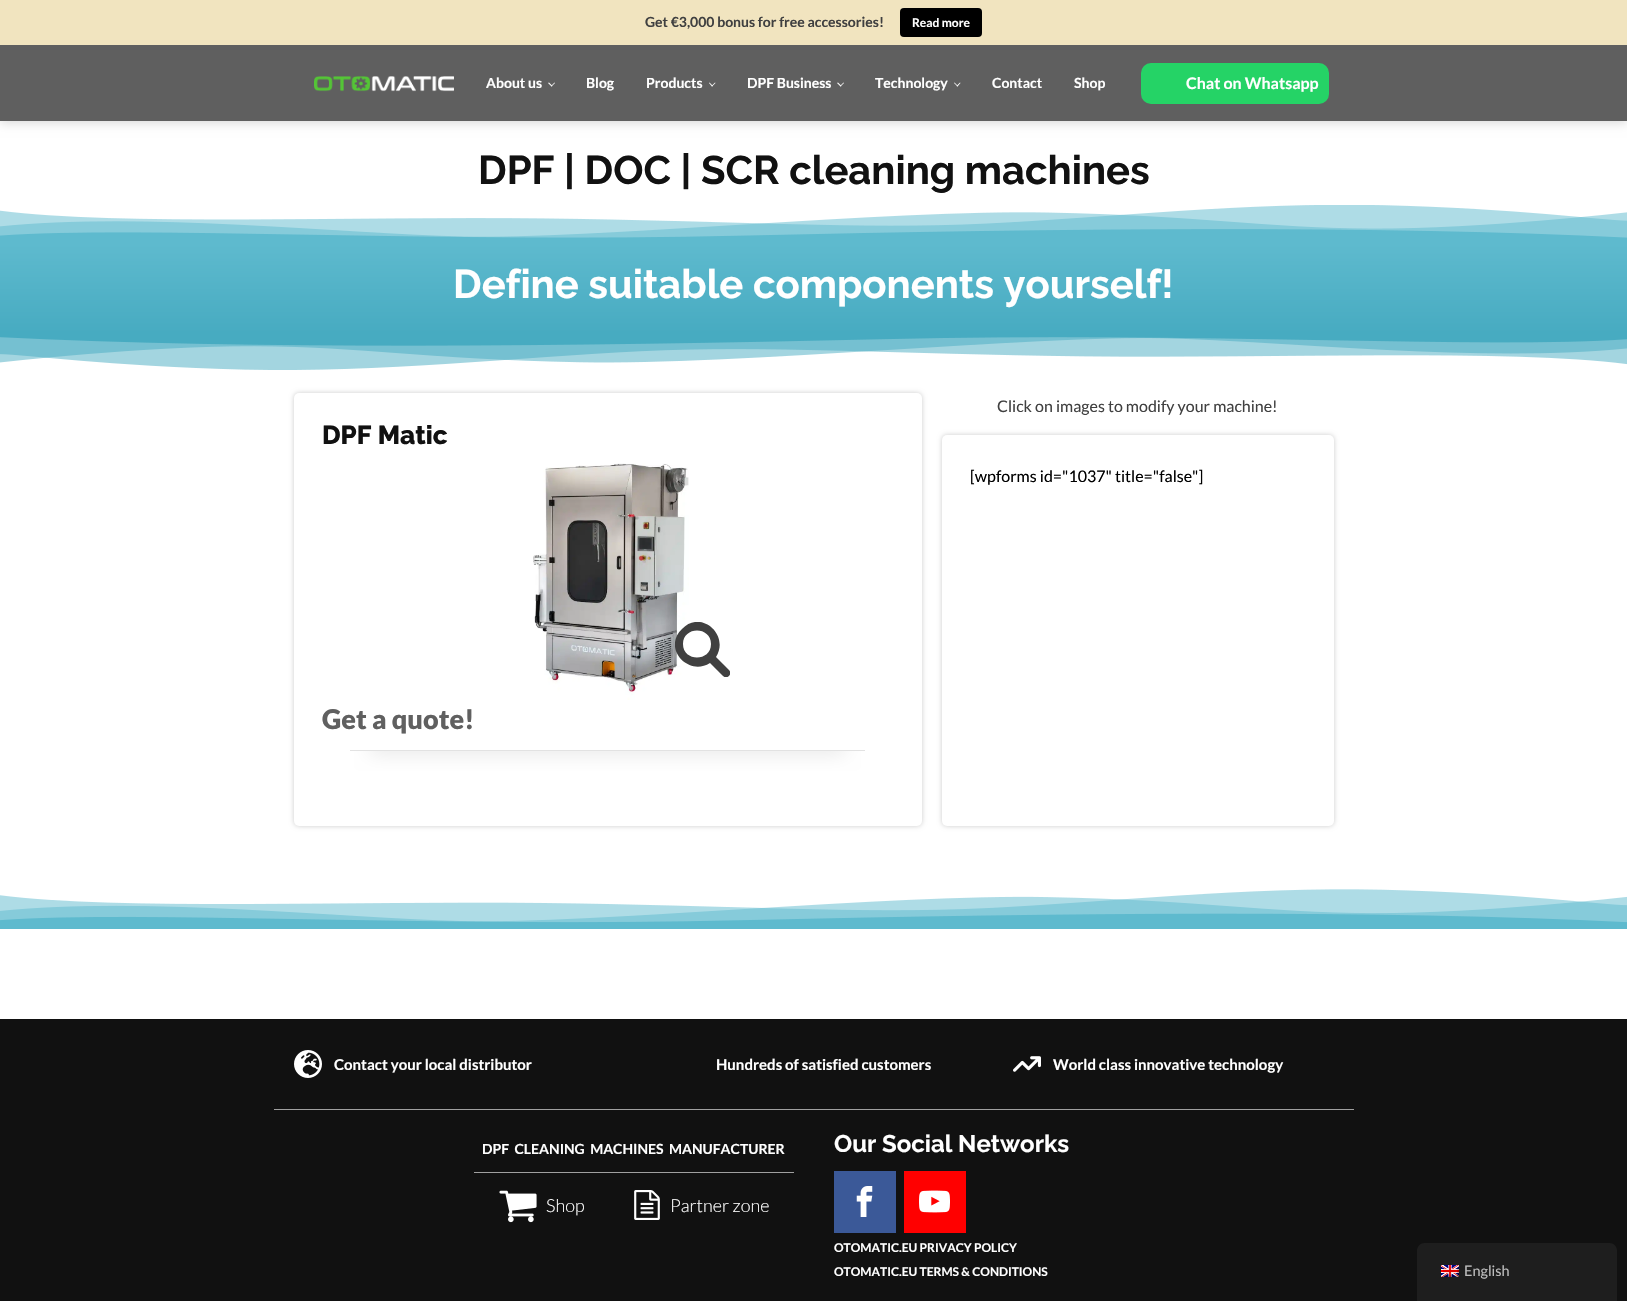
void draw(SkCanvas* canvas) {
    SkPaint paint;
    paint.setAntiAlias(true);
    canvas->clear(0xFFFFFFFF);
    paint.setColor(0x26000000);
    paint.setMaskFilter(SkMaskFilter::MakeBlur(kNormal_SkBlurStyle, 5));
    canvas->drawRect(SkRect::MakeXYWH(0, 2, 1627, 121), paint);
    paint.setMaskFilter(nullptr);
    paint.setColor(0xFFF1E4BF);
    canvas->drawRect(SkRect::MakeXYWH(0, 0, 1627, 45), paint);
    SkFont font1(fontMgr->matchFamilyStyle("Lato", SkFontStyle::Bold()), 14);
    font1.setSubpixel(true);
    paint.setColor(0xFF404040);
    canvas->drawString("Get €3,000 bonus for free accessories!", 645, 27, font1, paint);
    paint.setColor(0xFF000000);
    canvas->drawRoundRect(SkRect::MakeXYWH(900, 8, 82, 29), 4, 4, paint);
    SkFont font2(fontMgr->matchFamilyStyle("Lato", SkFontStyle::Bold()), 12);
    font2.setSubpixel(true);
    paint.setColor(0xFFFFFFFF);
    canvas->drawString("Read more", 912, 27, font2, paint);
    paint.setColor(0xFF5F5F5F);
    canvas->drawRect(SkRect::MakeXYWH(0, 45, 1627, 76), paint);
    canvas->drawImageRect(SkImages::DeferredFromEncodedData(SkData::MakeFromFileName("img1.png")), SkRect::MakeXYWH(314, 76, 140, 16), SkSamplingOptions());
    paint.setColor(0xFFFFFFFF);
    canvas->drawString("About us", 486, 88, font1, paint);
    canvas->drawPath(SkPathBuilder().moveTo(555, 83).lineTo(551.5f, 86.5f).lineTo(551, 86).lineTo(554.5f, 82.5f).close().detach(), paint);
    canvas->drawPath(SkPathBuilder().moveTo(552.5f, 86).lineTo(551.5f, 86.5f).lineTo(548, 83).lineTo(549, 82.5f).close().detach(), paint);
    canvas->drawString("Blog", 586, 88, font1, paint);
    canvas->drawString("Products", 646, 88, font1, paint);
    canvas->drawPath(SkPathBuilder().moveTo(715.5f, 83).lineTo(712, 86.5f).lineTo(711.5f, 86).lineTo(715, 82.5f).close().detach(), paint);
    canvas->drawPath(SkPathBuilder().moveTo(713, 86).lineTo(712, 86.5f).lineTo(709, 83).lineTo(709.5f, 82.5f).close().detach(), paint);
    canvas->drawString("DPF Business", 747, 88, font1, paint);
    canvas->drawPath(SkPathBuilder().moveTo(844, 83).lineTo(840.5f, 86.5f).lineTo(840, 86).lineTo(843.5f, 82.5f).close().detach(), paint);
    canvas->drawPath(SkPathBuilder().moveTo(841.5f, 86).lineTo(840.5f, 86.5f).lineTo(837, 83).lineTo(838, 82.5f).close().detach(), paint);
    canvas->drawString("Technology", 875, 88, font1, paint);
    canvas->drawPath(SkPathBuilder().moveTo(960.5f, 83).lineTo(957.5f, 86.5f).lineTo(956.5f, 86).lineTo(960, 82.5f).close().detach(), paint);
    canvas->drawPath(SkPathBuilder().moveTo(958, 86).lineTo(957.5f, 86.5f).lineTo(954, 83).lineTo(954.5f, 82.5f).close().detach(), paint);
    canvas->drawString("Contact", 992, 88, font1, paint);
    canvas->drawString("Shop", 1074, 88, font1, paint);
    paint.setColor(0xFF25D366);
    canvas->drawRoundRect(SkRect::MakeXYWH(1141, 63, 188, 41), 10, 10, paint);
    SkFont font3(fontMgr->matchFamilyStyle("Lato", SkFontStyle::Bold()), 16);
    font3.setSubpixel(true);
    paint.setColor(0xFFFFFFFF);
    canvas->drawString("Chat on Whatsapp", 1186, 89, font3, paint);
    SkFont font4(fontMgr->matchFamilyStyle("Raleway", SkFontStyle::Bold()), 40);
    font4.setSubpixel(true);
    paint.setColor(0xFF111111);
    canvas->drawString("DPF | DOC | SCR cleaning machines", 478, 184, font4, paint);
    canvas->drawImageRect(SkImages::DeferredFromEncodedData(SkData::MakeFromFileName("img2.png")), SkRect::MakeXYWH(0, 205, 1627, 39), SkSamplingOptions());
    {
        const SkColor colors[] = {0xFF5EBACE, 0xFF47ABC1};
        const float stops[] = {0, 1};
        const SkPoint ends[] = {{814, 244}, {814, 333}};
        paint.setShader(SkGradientShader::MakeLinear(ends, colors, stops, 2, SkTileMode::kClamp));
        paint.setAlpha(255);
    }
    canvas->drawRect(SkRect::MakeXYWH(0, 244, 1627, 89), paint);
    paint.setShader(nullptr);
    paint.setColor(0xFFFFFFFF);
    canvas->drawString("Define suitable components yourself!", 453, 298, font4, paint);
    canvas->drawImageRect(SkImages::DeferredFromEncodedData(SkData::MakeFromFileName("img3.png")), SkRect::MakeXYWH(0, 333, 1627, 37), SkSamplingOptions());
    paint.setColor(0x33000000);
    paint.setMaskFilter(SkMaskFilter::MakeBlur(kNormal_SkBlurStyle, 2.5f));
    canvas->drawRoundRect(SkRect::MakeXYWH(294, 393, 628, 433), 5, 5, paint);
    paint.setMaskFilter(nullptr);
    paint.setColor(0xFFFFFFFF);
    canvas->drawRoundRect(SkRect::MakeXYWH(294, 393, 628, 433), 5, 5, paint);
    SkFont font5(fontMgr->matchFamilyStyle("Raleway", SkFontStyle(800, SkFontStyle::kNormal_Width, SkFontStyle::kUpright_Slant)), 26);
    font5.setSubpixel(true);
    paint.setColor(0xFF111111);
    canvas->drawString("DPF Matic", 322, 444, font5, paint);
    canvas->drawImageRect(SkImages::DeferredFromEncodedData(SkData::MakeFromFileName("img4.png")), SkRect::MakeXYWH(533, 463, 156, 237), SkSamplingOptions());
    canvas->save();
    canvas->clipRect(SkRect::MakeXYWH(675, 622, 55, 55));
    paint.setColor(0xFF404040);
    canvas->drawPath(SkPathBuilder().moveTo(729, 670).lineTo(716, 657).cubicTo(730, 635, 701, 609, 682, 629).cubicTo(662, 648, 688, 677, 710, 663).lineTo(723, 676).cubicTo(727, 680, 733, 674, 729, 670).close().moveTo(683, 644).cubicTo(683, 626, 711, 626, 711, 644).cubicTo(711, 662, 683, 662, 683, 644).close().detach(), paint);
    canvas->restore();
    SkFont font6(fontMgr->matchFamilyStyle("Lato", SkFontStyle(900, SkFontStyle::kNormal_Width, SkFontStyle::kUpright_Slant)), 27);
    font6.setSubpixel(true);
    paint.setColor(0xFF606060);
    canvas->drawString("Get a quote!", 322, 729, font6, paint);
    canvas->save();
    canvas->clipRect(SkRect::MakeXYWH(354, 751, 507, 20));
    paint.setColor(0xFFDBDBDB);
    paint.setMaskFilter(SkMaskFilter::MakeBlur(kNormal_SkBlurStyle, 10));
    canvas->drawRect(SkRect::MakeXYWH(370, 740, 475, 11), paint);
    paint.setMaskFilter(nullptr);
    canvas->restore();
    paint.setColor(0xFFE2E2E2);
    canvas->drawRect(SkRect::MakeXYWH(350, 750, 515, 1), paint);
    SkFont font7(fontMgr->matchFamilyStyle("Lato", SkFontStyle::Normal()), 16);
    font7.setSubpixel(true);
    paint.setColor(0xFF404040);
    canvas->drawString("Click on images to modify your machine!", 997, 412, font7, paint);
    paint.setColor(0x33000000);
    paint.setMaskFilter(SkMaskFilter::MakeBlur(kNormal_SkBlurStyle, 2.5f));
    canvas->drawRoundRect(SkRect::MakeXYWH(942, 435, 392, 391), 5, 5, paint);
    paint.setMaskFilter(nullptr);
    paint.setColor(0xFFFFFFFF);
    canvas->drawRoundRect(SkRect::MakeXYWH(942, 435, 392, 391), 5, 5, paint);
    paint.setColor(0xFF000000);
    canvas->drawString("[wpforms id=\"1037\" title=\"false\"]", 970, 482, font7, paint);
    canvas->drawImageRect(SkImages::DeferredFromEncodedData(SkData::MakeFromFileName("img5.png")), SkRect::MakeXYWH(0, 889, 1627, 40), SkSamplingOptions());
    paint.setColor(0xFF111111);
    canvas->drawRect(SkRect::MakeXYWH(0, 1019, 1627, 282), paint);
    paint.setColor(0xFFA0A0A0);
    canvas->drawRect(SkRect::MakeXYWH(274, 1109, 1080, 1), paint);
    canvas->drawImageRect(SkImages::DeferredFromEncodedData(SkData::MakeFromFileName("img6.png")), SkRect::MakeXYWH(294, 1050, 28, 28), SkSamplingOptions());
    SkFont font8(fontMgr->matchFamilyStyle("Lato", SkFontStyle::Bold()), 15);
    font8.setSubpixel(true);
    paint.setColor(0xFFFFFFFF);
    canvas->drawString("Contact your local distributor", 334, 1070, font8, paint);
    canvas->drawString("Hundreds of satisfied customers", 716, 1070, font8, paint);
    canvas->drawImageRect(SkImages::DeferredFromEncodedData(SkData::MakeFromFileName("img7.png")), SkRect::MakeXYWH(1013, 1056, 28, 16), SkSamplingOptions());
    canvas->drawString("World class innovative technology", 1053, 1070, font8, paint);
    canvas->drawString("DPF  CLEANING  MACHINES  MANUFACTURER", 482, 1154, font1, paint);
    paint.setColor(0xFFA0A0A0);
    canvas->drawRect(SkRect::MakeXYWH(474, 1172, 320, 1), paint);
    canvas->drawImageRect(SkImages::DeferredFromEncodedData(SkData::MakeFromFileName("img8.png")), SkRect::MakeXYWH(499, 1190, 38, 33), SkSamplingOptions());
    SkFont font9(fontMgr->matchFamilyStyle("Lato", SkFontStyle(300, SkFontStyle::kNormal_Width, SkFontStyle::kUpright_Slant)), 18);
    font9.setSubpixel(true);
    paint.setColor(0xFFFFFFFF);
    canvas->drawString("Shop", 546, 1212, font9, paint);
    canvas->drawImageRect(SkImages::DeferredFromEncodedData(SkData::MakeFromFileName("img9.png")), SkRect::MakeXYWH(634, 1190, 26, 30), SkSamplingOptions());
    canvas->drawString("Partner zone", 670, 1212, font9, paint);
    SkFont font10(fontMgr->matchFamilyStyle("Raleway", SkFontStyle::Bold()), 24);
    font10.setSubpixel(true);
    canvas->drawString("Our Social Networks", 834, 1152, font10, paint);
    paint.setColor(0xFF3B5998);
    canvas->drawRect(SkRect::MakeXYWH(834, 1171, 62, 62), paint);
    canvas->drawImageRect(SkImages::DeferredFromEncodedData(SkData::MakeFromFileName("img10.png")), SkRect::MakeXYWH(856, 1186, 17, 31), SkSamplingOptions());
    paint.setColor(0xFFFF0000);
    canvas->drawRect(SkRect::MakeXYWH(904, 1171, 62, 62), paint);
    canvas->drawImageRect(SkImages::DeferredFromEncodedData(SkData::MakeFromFileName("img11.png")), SkRect::MakeXYWH(919, 1190, 31, 23), SkSamplingOptions());
    paint.setColor(0xFFFFFFFF);
    canvas->drawString("OTOMATIC.EU PRIVACY POLICY", 834, 1252, font2, paint);
    canvas->drawString("OTOMATIC.EU TERMS & CONDITIONS", 834, 1276, font2, paint);
    paint.setColor(0xFF1E1E1E);
    canvas->drawPath(SkPathBuilder().moveTo(1425, 1243).lineTo(1609, 1243).cubicTo(1613.5f, 1243, 1617, 1246.5f, 1617, 1251).lineTo(1617, 1301).lineTo(1417, 1301).lineTo(1417, 1251).cubicTo(1417, 1246.5f, 1420.5f, 1243, 1425, 1243).close().detach(), paint);
    canvas->drawImageRect(SkImages::DeferredFromEncodedData(SkData::MakeFromFileName("img12.png")), SkRect::MakeXYWH(1441, 1265, 18, 12), SkSamplingOptions());
    SkFont font11(fontMgr->matchFamilyStyle("Lato", SkFontStyle::Normal()), 14.5f);
    font11.setSubpixel(true);
    paint.setColor(0xFFBDBDBD);
    canvas->drawString("English", 1464, 1276, font11, paint);
}
